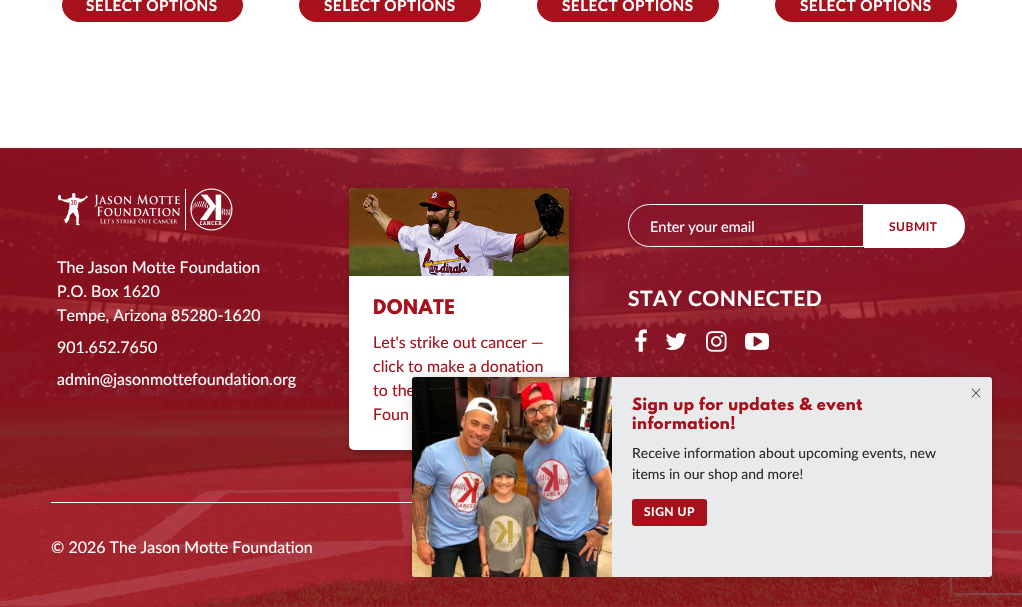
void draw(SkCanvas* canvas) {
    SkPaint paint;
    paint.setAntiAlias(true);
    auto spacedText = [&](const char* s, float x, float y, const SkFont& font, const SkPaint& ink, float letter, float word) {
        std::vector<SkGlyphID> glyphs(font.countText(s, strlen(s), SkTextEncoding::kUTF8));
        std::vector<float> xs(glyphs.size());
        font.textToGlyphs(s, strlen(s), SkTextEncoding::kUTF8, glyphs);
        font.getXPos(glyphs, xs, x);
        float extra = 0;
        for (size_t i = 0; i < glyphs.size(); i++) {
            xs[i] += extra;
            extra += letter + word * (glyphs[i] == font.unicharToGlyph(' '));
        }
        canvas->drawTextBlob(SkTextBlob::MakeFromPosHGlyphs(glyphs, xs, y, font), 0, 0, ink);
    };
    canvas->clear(0xFFFFFFFF);
    paint.setColor(0xFFA7111C);
    canvas->drawRoundRect(SkRect::MakeXYWH(62.5f, -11.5f, 180, 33), 16.5f, 16.5f, paint);
    paint.setStyle(SkPaint::kStroke_Style);
    paint.setStrokeWidth(1);
    canvas->drawRoundRect(SkRect::MakeXYWH(62.5f, -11.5f, 180, 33), 16.5f, 16.5f, paint);
    SkFont font1(fontMgr->matchFamilyStyle("Lato", SkFontStyle::Bold()), 15.25f);
    font1.setSubpixel(true);
    paint.setStyle(SkPaint::kFill_Style);
    paint.setColor(0xFFFFFFFF);
    spacedText("SELECT OPTIONS", 86, 11, font1, paint, 0.5f, 0);
    paint.setColor(0xFFA7111C);
    canvas->drawRoundRect(SkRect::MakeXYWH(299.5f, -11.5f, 181, 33), 16.5f, 16.5f, paint);
    paint.setStyle(SkPaint::kStroke_Style);
    canvas->drawRoundRect(SkRect::MakeXYWH(299.5f, -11.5f, 181, 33), 16.5f, 16.5f, paint);
    paint.setStyle(SkPaint::kFill_Style);
    paint.setColor(0xFFFFFFFF);
    spacedText("SELECT OPTIONS", 324, 11, font1, paint, 0.5f, 0);
    paint.setColor(0xFFA7111C);
    canvas->drawRoundRect(SkRect::MakeXYWH(537.5f, -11.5f, 181, 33), 16.5f, 16.5f, paint);
    paint.setStyle(SkPaint::kStroke_Style);
    canvas->drawRoundRect(SkRect::MakeXYWH(537.5f, -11.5f, 181, 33), 16.5f, 16.5f, paint);
    paint.setStyle(SkPaint::kFill_Style);
    paint.setColor(0xFFFFFFFF);
    spacedText("SELECT OPTIONS", 562, 11, font1, paint, 0.5f, 0);
    paint.setColor(0xFFA7111C);
    canvas->drawRoundRect(SkRect::MakeXYWH(775.5f, -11.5f, 181, 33), 16.5f, 16.5f, paint);
    paint.setStyle(SkPaint::kStroke_Style);
    canvas->drawRoundRect(SkRect::MakeXYWH(775.5f, -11.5f, 181, 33), 16.5f, 16.5f, paint);
    paint.setStyle(SkPaint::kFill_Style);
    paint.setColor(0xFFFFFFFF);
    spacedText("SELECT OPTIONS", 800, 11, font1, paint, 0.5f, 0);
    paint.setColor(0xFFA7111C);
    canvas->drawRect(SkRect::MakeXYWH(0, 148, 1022, 459), paint);
    canvas->drawImageRect(SkImages::DeferredFromEncodedData(SkData::MakeFromFileName("img1.png")), SkRect::MakeXYWH(0, 148, 1022, 459), SkSamplingOptions());
    canvas->drawImageRect(SkImages::DeferredFromEncodedData(SkData::MakeFromFileName("img2.png")), SkRect::MakeXYWH(57, 188, 176, 43), SkSamplingOptions());
    SkFont font2(fontMgr->matchFamilyStyle("Lato", SkFontStyle::Normal()), 16);
    font2.setSubpixel(true);
    paint.setColor(0xFFFFFFFF);
    canvas->drawString("The Jason Motte Foundation", 57, 273, font2, paint);
    canvas->drawString("P.O. Box 1620", 57, 297, font2, paint);
    canvas->drawString("Tempe, Arizona 85280-1620", 57, 321, font2, paint);
    canvas->drawString("901.652.7650", 57, 353, font2, paint);
    canvas->drawString("admin@jasonmottefoundation.org", 57, 385, font2, paint);
    paint.setColor(0x40000000);
    paint.setMaskFilter(SkMaskFilter::MakeBlur(kNormal_SkBlurStyle, 5));
    canvas->drawRoundRect(SkRect::MakeXYWH(352, 191, 220, 262), 5, 5, paint);
    paint.setMaskFilter(nullptr);
    paint.setColor(0xFFFFFFFF);
    canvas->drawRoundRect(SkRect::MakeXYWH(349, 188, 220, 262), 5, 5, paint);
    canvas->drawImageRect(SkImages::DeferredFromEncodedData(SkData::MakeFromFileName("img3.png")), SkRect::MakeXYWH(349, 188, 220, 88), SkSamplingOptions());
    SkFont font3(fontMgr->matchFamilyStyle("League Spartan", SkFontStyle::Bold()), 18);
    font3.setSubpixel(true);
    paint.setColor(0xFFA7111C);
    spacedText("DONATE", 373, 314, font3, paint, 0.5f, 0);
    canvas->drawString("Let's strike out cancer —", 373, 348, font2, paint);
    canvas->drawString("click to make a donation", 373, 372, font2, paint);
    canvas->drawString("to the", 373, 396, font2, paint);
    canvas->drawString("Foun", 373, 420, font2, paint);
    paint.setStyle(SkPaint::kStroke_Style);
    paint.setColor(0xFFFFFFFF);
    canvas->drawPath(SkPathBuilder().moveTo(649.5f, 204.5f).lineTo(863.5f, 204.5f).lineTo(863.5f, 246.5f).lineTo(649.5f, 246.5f).cubicTo(638, 246.5f, 628.5f, 237, 628.5f, 225.5f).cubicTo(628.5f, 214, 638, 204.5f, 649.5f, 204.5f).close().detach(), paint);
    SkFont font4(fontMgr->matchFamilyStyle("Lato", SkFontStyle::Normal()), 14.5f);
    font4.setSubpixel(true);
    paint.setStyle(SkPaint::kFill_Style);
    canvas->drawString("Enter your email", 650, 232, font4, paint);
    canvas->save();
    canvas->clipPath(SkPathBuilder(SkPathFillType::kEvenOdd).moveTo(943, 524).lineTo(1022, 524).lineTo(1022, 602).lineTo(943, 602).close().moveTo(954, 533).lineTo(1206, 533).cubicTo(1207, 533, 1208, 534, 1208, 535).lineTo(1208, 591).cubicTo(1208, 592, 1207, 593, 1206, 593).lineTo(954, 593).cubicTo(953, 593, 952, 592, 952, 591).lineTo(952, 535).cubicTo(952, 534, 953, 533, 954, 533).close().detach(), true);
    paint.setColor(0xFF808080);
    paint.setMaskFilter(SkMaskFilter::MakeBlur(kNormal_SkBlurStyle, 2.5f));
    canvas->drawRoundRect(SkRect::MakeXYWH(952, 533, 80, 60), 2, 2, paint);
    paint.setMaskFilter(nullptr);
    canvas->restore();
    paint.setColor(0xFFFFFFFF);
    canvas->drawPath(SkPathBuilder().moveTo(864, 204).lineTo(943, 204).cubicTo(955, 204, 965, 214, 965, 226).cubicTo(965, 238, 955, 248, 943, 248).lineTo(864, 248).close().detach(), paint);
    SkFont font5(fontMgr->matchFamilyStyle("Lato", SkFontStyle::Bold()), 12);
    font5.setSubpixel(true);
    paint.setColor(0xFFA7111C);
    spacedText("SUBMIT", 889, 231, font5, paint, 0.5f, 0);
    SkFont font6(fontMgr->matchFamilyStyle("Lato", SkFontStyle::Bold()), 21);
    font6.setSubpixel(true);
    paint.setColor(0xFFFFFFFF);
    spacedText("STAY CONNECTED", 628, 306, font6, paint, 0.5f, 0);
    canvas->drawImageRect(SkImages::DeferredFromEncodedData(SkData::MakeFromFileName("img4.png")), SkRect::MakeXYWH(635, 329, 12, 23), SkSamplingOptions());
    canvas->drawImageRect(SkImages::DeferredFromEncodedData(SkData::MakeFromFileName("img5.png")), SkRect::MakeXYWH(665, 332, 22, 18), SkSamplingOptions());
    canvas->drawImageRect(SkImages::DeferredFromEncodedData(SkData::MakeFromFileName("img6.png")), SkRect::MakeXYWH(706, 331, 21, 21), SkSamplingOptions());
    canvas->drawImageRect(SkImages::DeferredFromEncodedData(SkData::MakeFromFileName("img7.png")), SkRect::MakeXYWH(745, 332, 24, 18), SkSamplingOptions());
    canvas->drawRect(SkRect::MakeXYWH(51, 502, 361, 1), paint);
    canvas->drawString("© 2026 The Jason Motte Foundation", 51, 553, font2, paint);
    paint.setColor(0x26000000);
    paint.setMaskFilter(SkMaskFilter::MakeBlur(kNormal_SkBlurStyle, 5));
    canvas->drawRoundRect(SkRect::MakeXYWH(412, 377, 580, 200), 3, 3, paint);
    paint.setMaskFilter(nullptr);
    paint.setColor(0xFFE9EAEB);
    canvas->drawRoundRect(SkRect::MakeXYWH(412, 377, 580, 200), 3, 3, paint);
    canvas->drawImageRect(SkImages::DeferredFromEncodedData(SkData::MakeFromFileName("img8.png")), SkRect::MakeXYWH(412, 377, 200, 200), SkSamplingOptions());
    paint.setColor(0xFF2C2B2A);
    canvas->drawPath(SkPathBuilder().moveTo(980, 388.5f).lineTo(980.5f, 389).lineTo(972, 397.5f).lineTo(971.5f, 397).close().detach(), paint);
    canvas->drawPath(SkPathBuilder().moveTo(971.5f, 389).lineTo(972, 388.5f).lineTo(980.5f, 397).lineTo(980, 397.5f).close().detach(), paint);
    SkFont font7(fontMgr->matchFamilyStyle("League Spartan", SkFontStyle::Bold()), 15);
    font7.setSubpixel(true);
    paint.setColor(0xFFA7111C);
    spacedText("Sign up for updates & event", 632, 410, font7, paint, 0.5f, 0);
    spacedText("information!", 632, 429, font7, paint, 0.5f, 0);
    SkFont font8(fontMgr->matchFamilyStyle("Lato", SkFontStyle::Normal()), 14);
    font8.setSubpixel(true);
    paint.setColor(0xFF2C2B2A);
    canvas->drawString("Receive information about upcoming events, new", 632, 458, font8, paint);
    canvas->drawString("items in our shop and more!", 632, 479, font8, paint);
    paint.setColor(0xFFA7111C);
    canvas->drawRoundRect(SkRect::MakeXYWH(632, 499, 75, 27), 3, 3, paint);
    paint.setColor(0xFFFFFFFF);
    spacedText("SIGN UP", 644, 516, font5, paint, 0.5f, 0);
}
